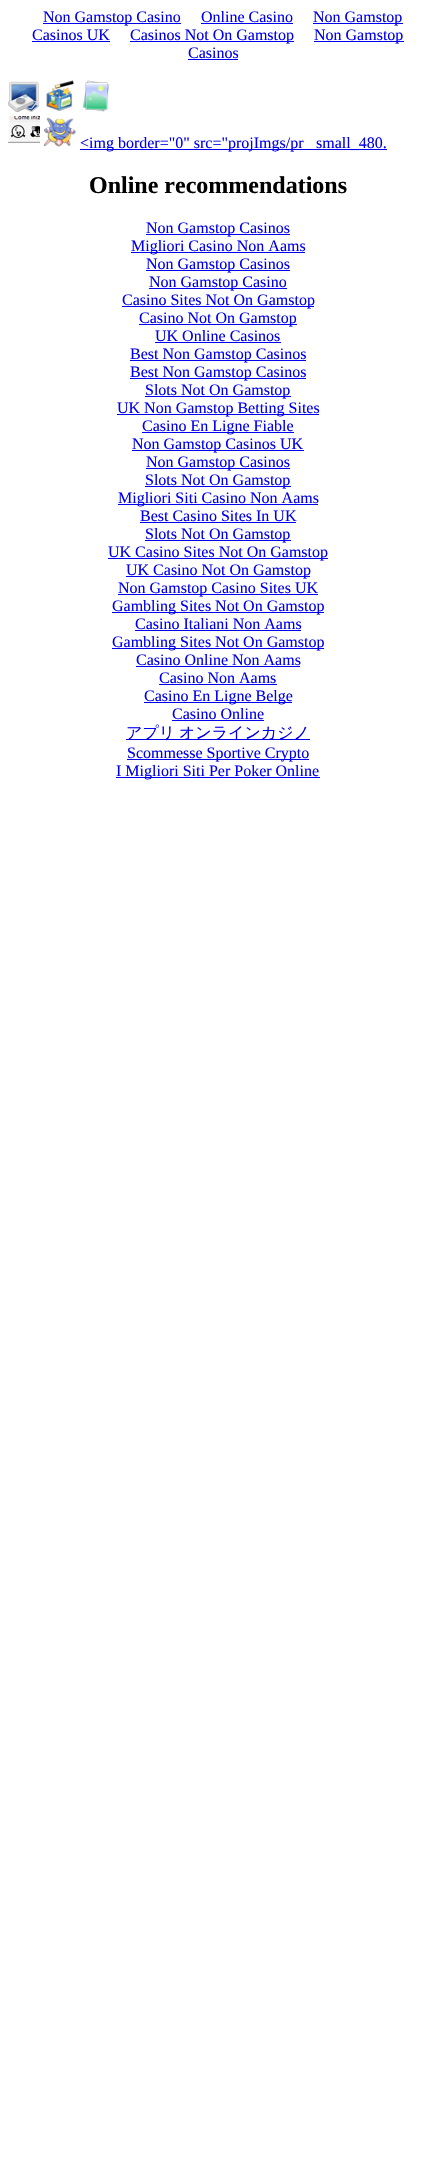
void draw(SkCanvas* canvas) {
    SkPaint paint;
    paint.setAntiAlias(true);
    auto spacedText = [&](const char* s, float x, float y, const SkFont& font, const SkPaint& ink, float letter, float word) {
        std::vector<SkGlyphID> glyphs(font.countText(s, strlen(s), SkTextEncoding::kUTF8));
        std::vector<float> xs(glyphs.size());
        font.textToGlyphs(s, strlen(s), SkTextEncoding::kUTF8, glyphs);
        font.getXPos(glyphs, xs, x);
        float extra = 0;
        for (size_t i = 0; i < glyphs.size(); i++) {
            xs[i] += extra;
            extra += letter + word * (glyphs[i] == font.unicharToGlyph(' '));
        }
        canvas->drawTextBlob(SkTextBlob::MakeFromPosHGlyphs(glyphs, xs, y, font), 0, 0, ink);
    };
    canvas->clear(0xFFFFFFFF);
    paint.setColor(0xFF0000EE);
    canvas->drawRect(SkRect::MakeXYWH(43, 23, 138, 1), paint);
    SkFont font1(fontMgr->matchFamilyStyle("Liberation Serif", SkFontStyle::Normal()), 16);
    font1.setSubpixel(true);
    canvas->drawString("Non Gamstop Casino", 43, 22, font1, paint);
    canvas->drawString("Online Casino", 201, 22, font1, paint);
    canvas->drawRect(SkRect::MakeXYWH(201, 23, 92, 1), paint);
    canvas->drawRect(SkRect::MakeXYWH(313, 23, 90, 1), paint);
    canvas->drawString("Non Gamstop", 313, 22, font1, paint);
    canvas->drawString("Casinos UK", 32, 40, font1, paint);
    canvas->drawRect(SkRect::MakeXYWH(32, 41, 78, 1), paint);
    canvas->drawRect(SkRect::MakeXYWH(130, 41, 164, 1), paint);
    canvas->drawString("Casinos Not On Gamstop", 130, 40, font1, paint);
    canvas->drawRect(SkRect::MakeXYWH(314, 41, 90, 1), paint);
    canvas->drawString("Non Gamstop", 314, 40, font1, paint);
    canvas->drawString("Casinos", 188, 58, font1, paint);
    canvas->drawRect(SkRect::MakeXYWH(188, 59, 50, 1), paint);
    canvas->drawImageRect(SkImages::DeferredFromEncodedData(SkData::MakeFromFileName("img1.png")), SkRect::MakeXYWH(8, 81, 32, 31), SkSamplingOptions());
    canvas->drawImageRect(SkImages::DeferredFromEncodedData(SkData::MakeFromFileName("img2.png")), SkRect::MakeXYWH(46, 80, 28, 31), SkSamplingOptions());
    canvas->drawImageRect(SkImages::DeferredFromEncodedData(SkData::MakeFromFileName("img3.png")), SkRect::MakeXYWH(82, 80, 28, 32), SkSamplingOptions());
    canvas->drawImageRect(SkImages::DeferredFromEncodedData(SkData::MakeFromFileName("img4.png")), SkRect::MakeXYWH(8, 116, 32, 27), SkSamplingOptions());
    canvas->drawImageRect(SkImages::DeferredFromEncodedData(SkData::MakeFromFileName("img5.png")), SkRect::MakeXYWH(44, 117, 32, 30), SkSamplingOptions());
    canvas->drawRect(SkRect::MakeXYWH(80, 149, 307, 1), paint);
    canvas->drawString("<img border=\"0\" src=\"projImgs/pr", 80, 148, font1, paint);
    canvas->drawString("small_480.", 316, 148, font1, paint);
    SkFont font2(fontMgr->matchFamilyStyle("Liberation Serif", SkFontStyle::Bold()), 24);
    font2.setSubpixel(true);
    paint.setColor(0xFF000000);
    canvas->drawString("Online recommendations", 89, 193, font2, paint);
    paint.setColor(0xFF0000EE);
    canvas->drawRect(SkRect::MakeXYWH(146, 234, 144, 1), paint);
    canvas->drawString("Non Gamstop Casinos", 146, 233, font1, paint);
    canvas->drawRect(SkRect::MakeXYWH(131, 252, 174, 1), paint);
    canvas->drawString("Migliori Casino Non Aams", 131, 251, font1, paint);
    canvas->drawRect(SkRect::MakeXYWH(146, 270, 144, 1), paint);
    canvas->drawString("Non Gamstop Casinos", 146, 269, font1, paint);
    canvas->drawRect(SkRect::MakeXYWH(149, 288, 138, 1), paint);
    canvas->drawString("Non Gamstop Casino", 149, 287, font1, paint);
    canvas->drawRect(SkRect::MakeXYWH(122, 306, 192, 1), paint);
    canvas->drawString("Casino Sites Not On Gamstop", 122, 305, font1, paint);
    canvas->drawRect(SkRect::MakeXYWH(139, 324, 158, 1), paint);
    canvas->drawString("Casino Not On Gamstop", 139, 323, font1, paint);
    canvas->drawString("UK Online Casinos", 155, 341, font1, paint);
    canvas->drawRect(SkRect::MakeXYWH(155, 342, 126, 1), paint);
    canvas->drawRect(SkRect::MakeXYWH(130, 360, 176, 1), paint);
    canvas->drawString("Best Non Gamstop Casinos", 130, 359, font1, paint);
    canvas->drawRect(SkRect::MakeXYWH(130, 378, 176, 1), paint);
    canvas->drawString("Best Non Gamstop Casinos", 130, 377, font1, paint);
    canvas->drawRect(SkRect::MakeXYWH(145, 396, 146, 1), paint);
    canvas->drawString("Slots Not On Gamstop", 145, 395, font1, paint);
    canvas->drawRect(SkRect::MakeXYWH(117, 414, 202, 1), paint);
    canvas->drawString("UK Non Gamstop Betting Sites", 117, 413, font1, paint);
    canvas->drawRect(SkRect::MakeXYWH(142, 432, 152, 1), paint);
    canvas->drawString("Casino En Ligne Fiable", 142, 431, font1, paint);
    canvas->drawRect(SkRect::MakeXYWH(132, 450, 172, 1), paint);
    canvas->drawString("Non Gamstop Casinos UK", 132, 449, font1, paint);
    canvas->drawRect(SkRect::MakeXYWH(146, 468, 144, 1), paint);
    canvas->drawString("Non Gamstop Casinos", 146, 467, font1, paint);
    canvas->drawRect(SkRect::MakeXYWH(145, 486, 146, 1), paint);
    canvas->drawString("Slots Not On Gamstop", 145, 485, font1, paint);
    canvas->drawRect(SkRect::MakeXYWH(118, 504, 200, 1), paint);
    canvas->drawString("Migliori Siti Casino Non Aams", 118, 503, font1, paint);
    canvas->drawString("Best Casino Sites In UK", 140, 521, font1, paint);
    canvas->drawRect(SkRect::MakeXYWH(140, 522, 156, 1), paint);
    canvas->drawRect(SkRect::MakeXYWH(145, 540, 146, 1), paint);
    canvas->drawString("Slots Not On Gamstop", 145, 539, font1, paint);
    canvas->drawRect(SkRect::MakeXYWH(108, 558, 220, 1), paint);
    canvas->drawString("UK Casino Sites Not On Gamstop", 108, 557, font1, paint);
    canvas->drawRect(SkRect::MakeXYWH(126, 576, 184, 1), paint);
    canvas->drawString("UK Casino Not On Gamstop", 126, 575, font1, paint);
    canvas->drawRect(SkRect::MakeXYWH(118, 594, 200, 1), paint);
    canvas->drawString("Non Gamstop Casino Sites UK", 118, 593, font1, paint);
    canvas->drawRect(SkRect::MakeXYWH(112, 612, 212, 1), paint);
    canvas->drawString("Gambling Sites Not On Gamstop", 112, 611, font1, paint);
    canvas->drawString("Casino Italiani Non Aams", 135, 629, font1, paint);
    canvas->drawRect(SkRect::MakeXYWH(135, 630, 166, 1), paint);
    canvas->drawRect(SkRect::MakeXYWH(112, 648, 212, 1), paint);
    canvas->drawString("Gambling Sites Not On Gamstop", 112, 647, font1, paint);
    canvas->drawString("Casino Online Non Aams", 136, 665, font1, paint);
    canvas->drawRect(SkRect::MakeXYWH(136, 666, 164, 1), paint);
    canvas->drawString("Casino Non Aams", 159, 683, font1, paint);
    canvas->drawRect(SkRect::MakeXYWH(159, 684, 118, 1), paint);
    canvas->drawRect(SkRect::MakeXYWH(144, 702, 148, 1), paint);
    canvas->drawString("Casino En Ligne Belge", 144, 701, font1, paint);
    canvas->drawString("Casino Online", 172, 719, font1, paint);
    canvas->drawRect(SkRect::MakeXYWH(172, 720, 92, 1), paint);
    canvas->drawRect(SkRect::MakeXYWH(126, 739, 184, 1), paint);
    SkFont font3(fontMgr->matchFamilyStyle("WenQuanYi Zen Hei", SkFontStyle(500, SkFontStyle::kNormal_Width, SkFontStyle::kUpright_Slant)), 16);
    font3.setSubpixel(true);
    spacedText("アプリ オンラインカジノ", 126, 738, font3, paint, 0, -1);
    canvas->drawRect(SkRect::MakeXYWH(127, 759, 182, 1), paint);
    canvas->drawString("Scommesse Sportive Crypto", 127, 758, font1, paint);
    canvas->drawRect(SkRect::MakeXYWH(116, 777, 204, 1), paint);
    canvas->drawString("I Migliori Siti Per Poker Online", 116, 776, font1, paint);
}
